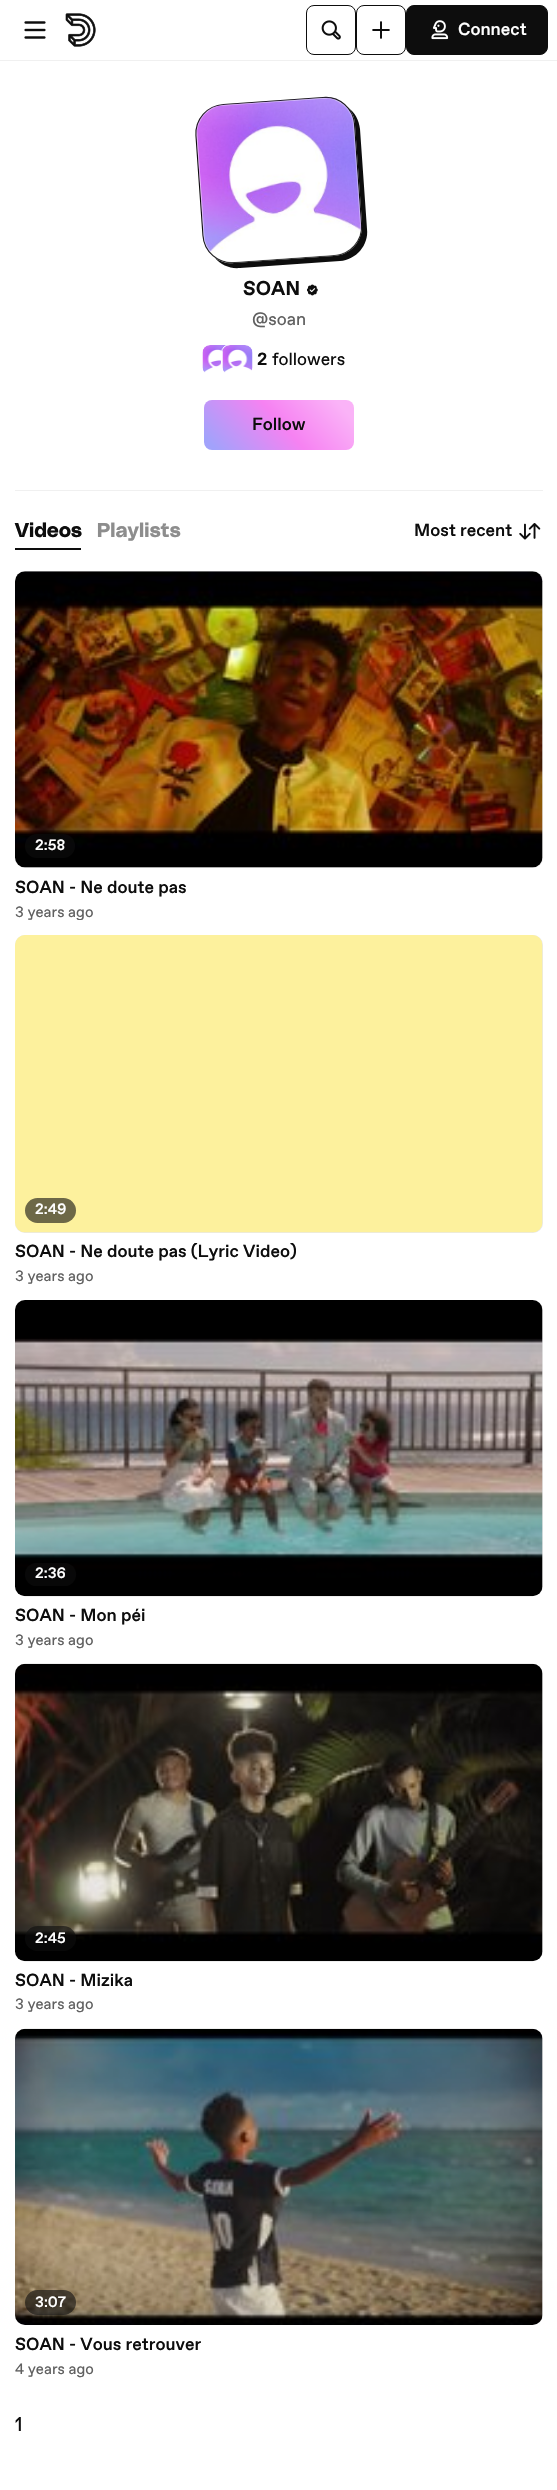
void draw(SkCanvas* canvas) {
    SkPaint paint;
    paint.setAntiAlias(true);
    auto spacedText = [&](const char* s, float x, float y, const SkFont& font, const SkPaint& ink, float letter, float word) {
        std::vector<SkGlyphID> glyphs(font.countText(s, strlen(s), SkTextEncoding::kUTF8));
        std::vector<float> xs(glyphs.size());
        font.textToGlyphs(s, strlen(s), SkTextEncoding::kUTF8, glyphs);
        font.getXPos(glyphs, xs, x);
        float extra = 0;
        for (size_t i = 0; i < glyphs.size(); i++) {
            xs[i] += extra;
            extra += letter + word * (glyphs[i] == font.unicharToGlyph(' '));
        }
        canvas->drawTextBlob(SkTextBlob::MakeFromPosHGlyphs(glyphs, xs, y, font), 0, 0, ink);
    };
    canvas->clear(0xFFFFFFFF);
    paint.setColor(0xFFF0F0F0);
    canvas->drawRect(SkRect::MakeXYWH(0, 60, 557, 1), paint);
    canvas->drawImageRect(SkImages::DeferredFromEncodedData(SkData::MakeFromFileName("img1.png")), SkRect::MakeXYWH(24, 21, 22, 18), SkSamplingOptions());
    canvas->drawImageRect(SkImages::DeferredFromEncodedData(SkData::MakeFromFileName("img2.png")), SkRect::MakeXYWH(65, 13, 31, 34), SkSamplingOptions());
    paint.setStyle(SkPaint::kStroke_Style);
    paint.setStrokeWidth(1);
    paint.setColor(0xFF0D0D0D);
    canvas->drawRoundRect(SkRect::MakeXYWH(306.5f, 5.5f, 49, 49), 7.5f, 7.5f, paint);
    canvas->drawImageRect(SkImages::DeferredFromEncodedData(SkData::MakeFromFileName("img3.png")), SkRect::MakeXYWH(321, 20, 20, 20), SkSamplingOptions());
    canvas->drawRoundRect(SkRect::MakeXYWH(356.5f, 5.5f, 49, 49), 7.5f, 7.5f, paint);
    canvas->drawImageRect(SkImages::DeferredFromEncodedData(SkData::MakeFromFileName("img4.png")), SkRect::MakeXYWH(372, 21, 18, 18), SkSamplingOptions());
    paint.setStyle(SkPaint::kFill_Style);
    canvas->drawRoundRect(SkRect::MakeXYWH(406.5f, 5.5f, 141, 49), 7.5f, 7.5f, paint);
    paint.setStyle(SkPaint::kStroke_Style);
    canvas->drawRoundRect(SkRect::MakeXYWH(406.5f, 5.5f, 141, 49), 7.5f, 7.5f, paint);
    canvas->drawImageRect(SkImages::DeferredFromEncodedData(SkData::MakeFromFileName("img5.png")), SkRect::MakeXYWH(431, 20, 18, 20), SkSamplingOptions());
    SkFont font1(fontMgr->matchFamilyStyle("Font", SkFontStyle(500, SkFontStyle::kNormal_Width, SkFontStyle::kUpright_Slant)), 17.5f);
    font1.setSubpixel(true);
    paint.setStyle(SkPaint::kFill_Style);
    paint.setColor(0xFFFFFFFF);
    canvas->drawString("Connect", 458, 35, font1, paint);
    paint.setColor(0xFFF0F0F0);
    canvas->drawRect(SkRect::MakeXYWH(15, 490, 528, 1), paint);
    paint.setColor(0xFF0D0D0D);
    canvas->drawPath(SkPathBuilder().moveTo(215, 258).cubicTo(221, 265, 230, 269, 240, 268).lineTo(340, 261).cubicTo(356, 260, 369, 245, 367, 229).lineTo(360, 129).cubicTo(359, 120, 355, 112, 347, 107).cubicTo(352, 111, 355, 118, 355, 125).lineTo(362, 224).cubicTo(363, 241, 351, 255, 334, 256).lineTo(234, 263).cubicTo(227, 264, 221, 262, 215, 258).close().detach(), paint);
    paint.setStyle(SkPaint::kStroke_Style);
    paint.setStrokeWidth(1.2f);
    canvas->drawPath(SkPathBuilder().moveTo(223.5f, 104.5f).lineTo(323, 97.5f).cubicTo(339.5f, 96, 353.5f, 108.5f, 354.5f, 124.5f).lineTo(361.5f, 224.5f).cubicTo(362.5f, 240.5f, 350.5f, 254.5f, 334, 255.5f).lineTo(234.5f, 262.5f).cubicTo(218, 264, 204, 251.5f, 203, 235.5f).lineTo(196, 135.5f).cubicTo(195, 119.5f, 207, 105.5f, 223.5f, 104.5f).close().detach(), paint);
    canvas->drawImageRect(SkImages::DeferredFromEncodedData(SkData::MakeFromFileName("img6.png")), SkRect::MakeXYWH(196, 97, 166, 166), SkSamplingOptions());
    SkFont font2(fontMgr->matchFamilyStyle("Font", SkFontStyle::Bold()), 20);
    font2.setSubpixel(true);
    paint.setStyle(SkPaint::kFill_Style);
    canvas->drawString("SOAN", 243, 295, font2, paint);
    canvas->drawImageRect(SkImages::DeferredFromEncodedData(SkData::MakeFromFileName("img7.png")), SkRect::MakeXYWH(307, 284, 11, 12), SkSamplingOptions());
    SkFont font3(fontMgr->matchFamilyStyle("Font", SkFontStyle::Normal()), 17.5f);
    font3.setSubpixel(true);
    paint.setColor(0xFF606060);
    canvas->drawString("@soan", 252, 325, font3, paint);
    canvas->drawImageRect(SkImages::DeferredFromEncodedData(SkData::MakeFromFileName("img8.png")), SkRect::MakeXYWH(202, 345, 27, 28), SkSamplingOptions());
    paint.setStyle(SkPaint::kStroke_Style);
    paint.setStrokeWidth(1);
    paint.setColor(0xFFFFFFFF);
    canvas->drawRoundRect(SkRect::MakeXYWH(201.5f, 344.5f, 32, 31), 8.5f, 8.5f, paint);
    canvas->drawImageRect(SkImages::DeferredFromEncodedData(SkData::MakeFromFileName("img9.png")), SkRect::MakeXYWH(222, 345, 31, 28), SkSamplingOptions());
    canvas->drawRoundRect(SkRect::MakeXYWH(221.5f, 344.5f, 32, 31), 8.5f, 8.5f, paint);
    SkFont font4(fontMgr->matchFamilyStyle("Font", SkFontStyle::Bold()), 17.5f);
    font4.setSubpixel(true);
    paint.setStyle(SkPaint::kFill_Style);
    paint.setColor(0xFF0D0D0D);
    canvas->drawString("2", 257, 365, font4, paint);
    canvas->drawString("followers", 272, 365, font3, paint);
    {
        const SkColor colors[] = {0xFFFAB3F7, 0xFFF682F2, 0xFFA2A2FB};
        const float stops[] = {0.09f, 0.48f, 0.94f};
        const SkPoint ends[] = {{333, 377}, {225, 473}};
        paint.setShader(SkGradientShader::MakeLinear(ends, colors, stops, 3, SkTileMode::kClamp));
        paint.setAlpha(255);
    }
    canvas->drawRoundRect(SkRect::MakeXYWH(204, 400, 150, 50), 8, 8, paint);
    paint.setShader(nullptr);
    paint.setColor(0xFF0D0D0D);
    canvas->drawString("Follow", 252, 430, font1, paint);
    canvas->drawRect(SkRect::MakeXYWH(15, 548, 66, 2), paint);
    SkFont font5(fontMgr->matchFamilyStyle("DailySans", SkFontStyle::Bold()), 20);
    font5.setSubpixel(true);
    spacedText("Videos", 15, 537, font5, paint, 0.25f, 0);
    paint.setColor(0xFF8D8D8D);
    spacedText("Playlists", 97, 537, font5, paint, 0.25f, 0);
    paint.setColor(0xFF0D0D0D);
    canvas->drawString("Most recent", 414, 536, font1, paint);
    canvas->drawImageRect(SkImages::DeferredFromEncodedData(SkData::MakeFromFileName("img10.png")), SkRect::MakeXYWH(519, 523, 22, 17), SkSamplingOptions());
    paint.setColor(0xFFE8E8E8);
    canvas->drawRoundRect(SkRect::MakeXYWH(15, 571, 528, 297), 10, 10, paint);
    canvas->drawImageRect(SkImages::DeferredFromEncodedData(SkData::MakeFromFileName("img11.png")), SkRect::MakeXYWH(15, 571, 528, 297), SkSamplingOptions());
    paint.setColor(0x990D0D0D);
    canvas->drawRoundRect(SkRect::MakeXYWH(25, 834, 50, 24), 12, 12, paint);
    SkFont font6(fontMgr->matchFamilyStyle("Font", SkFontStyle(500, SkFontStyle::kNormal_Width, SkFontStyle::kUpright_Slant)), 15);
    font6.setSubpixel(true);
    paint.setColor(0xFFFFFFFF);
    canvas->drawString("2:58", 35, 850, font6, paint);
    paint.setColor(0xFF0D0D0D);
    canvas->drawString("SOAN - Ne doute pas", 15, 893, font1, paint);
    canvas->save();
    canvas->clipRect(SkRect::MakeXYWH(15, 898, 518, 22));
    SkFont font7(fontMgr->matchFamilyStyle("Font", SkFontStyle::Normal()), 15);
    font7.setSubpixel(true);
    paint.setColor(0xFF606060);
    canvas->drawString("3 years ago", 15, 917, font7, paint);
    canvas->restore();
    paint.setColor(0xFFE8E8E8);
    canvas->drawRoundRect(SkRect::MakeXYWH(15, 935, 528, 298), 10, 10, paint);
    canvas->drawImageRect(SkImages::DeferredFromEncodedData(SkData::MakeFromFileName("img12.png")), SkRect::MakeXYWH(15, 935, 528, 298), SkSamplingOptions());
    paint.setColor(0xFF6D6847);
    canvas->drawRoundRect(SkRect::MakeXYWH(25, 1198, 51, 25), 12.5f, 12.5f, paint);
    paint.setColor(0xFFFFFFFF);
    canvas->drawString("2:49", 35, 1214, font6, paint);
    canvas->save();
    canvas->clipRect(SkRect::MakeXYWH(15, 1243, 528, 20));
    paint.setColor(0xFF0D0D0D);
    canvas->drawString("SOAN - Ne doute pas (Lyric Video)", 15, 1257, font1, paint);
    canvas->restore();
    paint.setColor(0xFF606060);
    canvas->drawString("3 years ago", 15, 1281, font7, paint);
    paint.setColor(0xFFE8E8E8);
    canvas->drawRoundRect(SkRect::MakeXYWH(15, 1300, 528, 296), 10, 10, paint);
    canvas->drawImageRect(SkImages::DeferredFromEncodedData(SkData::MakeFromFileName("img13.png")), SkRect::MakeXYWH(15, 1300, 528, 297), SkSamplingOptions());
    paint.setColor(0x990D0D0D);
    canvas->drawRoundRect(SkRect::MakeXYWH(25, 1563, 51, 23), 11.5f, 11.5f, paint);
    paint.setColor(0xFFFFFFFF);
    canvas->drawString("2:36", 35, 1578, font6, paint);
    paint.setColor(0xFF0D0D0D);
    canvas->drawString("SOAN - Mon péi", 15, 1621, font1, paint);
    paint.setColor(0xFF606060);
    canvas->drawString("3 years ago", 15, 1645, font7, paint);
    paint.setColor(0xFFE8E8E8);
    canvas->drawRoundRect(SkRect::MakeXYWH(15, 1664, 528, 297), 10, 10, paint);
    canvas->drawImageRect(SkImages::DeferredFromEncodedData(SkData::MakeFromFileName("img14.png")), SkRect::MakeXYWH(15, 1663, 528, 299), SkSamplingOptions());
    paint.setColor(0x990D0D0D);
    canvas->drawRoundRect(SkRect::MakeXYWH(25, 1926, 51, 25), 12.5f, 12.5f, paint);
    paint.setColor(0xFFFFFFFF);
    canvas->drawString("2:45", 35, 1943, font6, paint);
    paint.setColor(0xFF0D0D0D);
    canvas->drawString("SOAN - Mizika", 15, 1986, font1, paint);
    paint.setColor(0xFF606060);
    canvas->drawString("3 years ago", 15, 2009, font7, paint);
    paint.setColor(0xFFE8E8E8);
    canvas->drawRoundRect(SkRect::MakeXYWH(15, 2029, 528, 296), 10, 10, paint);
    canvas->drawImageRect(SkImages::DeferredFromEncodedData(SkData::MakeFromFileName("img15.png")), SkRect::MakeXYWH(15, 2028, 528, 297), SkSamplingOptions());
    paint.setColor(0x990D0D0D);
    canvas->drawRoundRect(SkRect::MakeXYWH(25, 2290, 51, 25), 12.5f, 12.5f, paint);
    paint.setColor(0xFFFFFFFF);
    canvas->drawString("3:07", 35, 2307, font6, paint);
    paint.setColor(0xFF0D0D0D);
    canvas->drawString("SOAN - Vous retrouver", 15, 2350, font1, paint);
    paint.setColor(0xFF606060);
    canvas->drawString("4 years ago", 15, 2374, font7, paint);
    SkFont font8(fontMgr->matchFamilyStyle("Font", SkFontStyle::Normal()), 20);
    font8.setSubpixel(true);
    paint.setColor(0xFF0D0D0D);
    canvas->drawString("1", 15, 2431, font8, paint);
}
